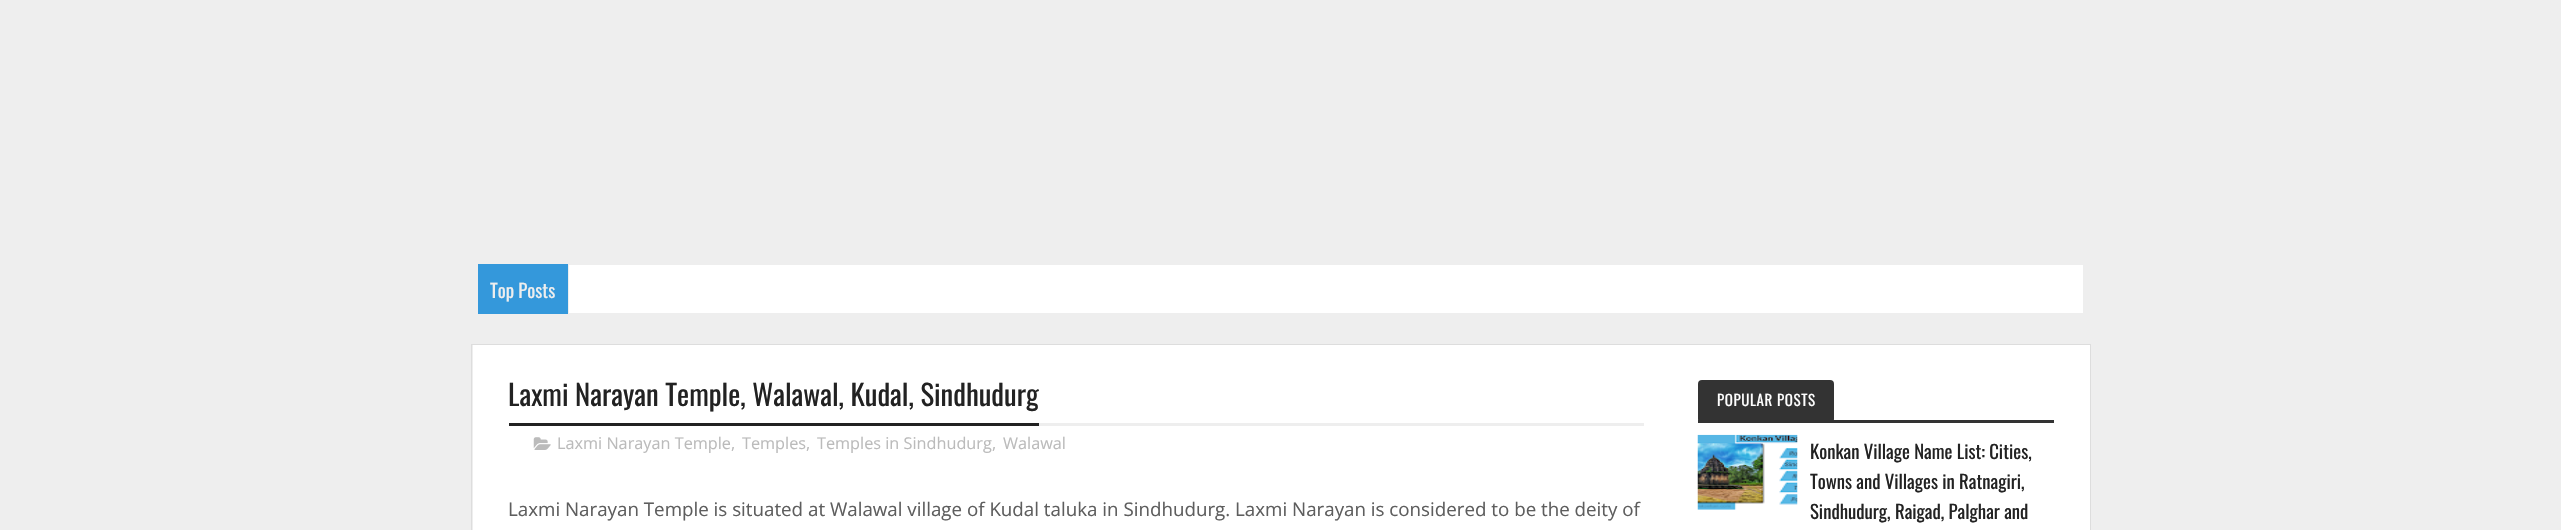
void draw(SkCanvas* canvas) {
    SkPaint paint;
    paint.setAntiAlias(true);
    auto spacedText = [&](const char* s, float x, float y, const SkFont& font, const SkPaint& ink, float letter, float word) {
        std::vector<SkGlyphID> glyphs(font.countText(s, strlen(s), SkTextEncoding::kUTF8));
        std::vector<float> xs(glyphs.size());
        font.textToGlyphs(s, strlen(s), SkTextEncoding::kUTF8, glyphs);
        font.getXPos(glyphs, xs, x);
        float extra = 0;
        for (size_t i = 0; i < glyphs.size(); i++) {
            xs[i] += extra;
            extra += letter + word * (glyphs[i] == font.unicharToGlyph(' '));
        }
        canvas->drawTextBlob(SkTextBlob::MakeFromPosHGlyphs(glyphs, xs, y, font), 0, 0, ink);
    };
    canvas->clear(0xFFEEEEEE);
    paint.setColor(0xFFFFFFFF);
    canvas->drawRect(SkRect::MakeXYWH(569, 265, 1514, 48), paint);
    paint.setColor(0xFF3498DB);
    canvas->drawRect(SkRect::MakeXYWH(478, 264, 90, 50), paint);
    SkFont font1(fontMgr->matchFamilyStyle("Oswald", SkFontStyle::Normal()), 18.75f);
    font1.setSubpixel(true);
    paint.setColor(0xFFEEEEEE);
    canvas->drawString("Top Posts", 490, 298, font1, paint);
    paint.setStyle(SkPaint::kStroke_Style);
    paint.setStrokeWidth(1);
    paint.setColor(0xFFDDDDDD);
    canvas->drawRect(SkRect::MakeXYWH(471.5f, 344.5f, 1619, 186), paint);
    paint.setStyle(SkPaint::kFill_Style);
    paint.setColor(0xFFFFFFFF);
    canvas->drawRect(SkRect::MakeXYWH(473, 345, 1617, 185), paint);
    paint.setColor(0xFFEEEEEE);
    canvas->drawRect(SkRect::MakeXYWH(1039, 423, 605, 3), paint);
    paint.setColor(0xFF222222);
    canvas->drawRect(SkRect::MakeXYWH(509, 423, 530, 3), paint);
    SkFont font2(fontMgr->matchFamilyStyle("Oswald", SkFontStyle::Normal()), 28.75f);
    font2.setSubpixel(true);
    canvas->drawString("Laxmi Narayan Temple, Walawal, Kudal, Sindhudurg", 508, 406, font2, paint);
    canvas->drawImageRect(SkImages::DeferredFromEncodedData(SkData::MakeFromFileName("img1.png")), SkRect::MakeXYWH(533, 437, 18, 13), SkSamplingOptions());
    SkFont font3(fontMgr->matchFamilyStyle("Open Sans", SkFontStyle::Normal()), 16.25f);
    font3.setSubpixel(true);
    paint.setColor(0xFFBBBBBB);
    canvas->drawString("Laxmi Narayan Temple", 557, 449, font3, paint);
    canvas->drawString(",", 731, 449, font3, paint);
    canvas->drawString("Temples", 742, 449, font3, paint);
    canvas->drawString(",", 806, 449, font3, paint);
    canvas->drawString("Temples in Sindhudurg", 817, 449, font3, paint);
    canvas->drawString(",", 992, 449, font3, paint);
    canvas->drawString("Walawal", 1003, 449, font3, paint);
    SkFont font4(fontMgr->matchFamilyStyle("Open Sans", SkFontStyle::Normal()), 18.75f);
    font4.setSubpixel(true);
    paint.setColor(0xFF5E5E5E);
    canvas->drawString("Laxmi Narayan Temple is situated at Walawal village of Kudal taluka in Sindhudurg. Laxmi Narayan is considered to be the deity of", 508, 516, font4, paint);
    paint.setColor(0xFF333333);
    canvas->drawRect(SkRect::MakeXYWH(1698, 420, 356, 3), paint);
    canvas->drawRoundRect(SkRect::MakeXYWH(1698, 380, 136, 43), 4, 4, paint);
    SkFont font5(fontMgr->matchFamilyStyle("Oswald", SkFontStyle::Normal()), 15);
    font5.setSubpixel(true);
    paint.setColor(0xFFFFFFFF);
    spacedText("POPULAR POSTS", 1717, 406, font5, paint, 0.6f, 0);
    canvas->drawImageRect(SkImages::DeferredFromEncodedData(SkData::MakeFromFileName("img2.png")), SkRect::MakeXYWH(1697, 434, 101, 76), SkSamplingOptions());
    paint.setColor(0xFF222222);
    canvas->drawString("Konkan Village Name List: Cities,", 1810, 459, font1, paint);
    canvas->drawString("Towns and Villages in Ratnagiri,", 1810, 489, font1, paint);
    canvas->drawString("Sindhudurg, Raigad, Palghar and", 1810, 519, font1, paint);
}
